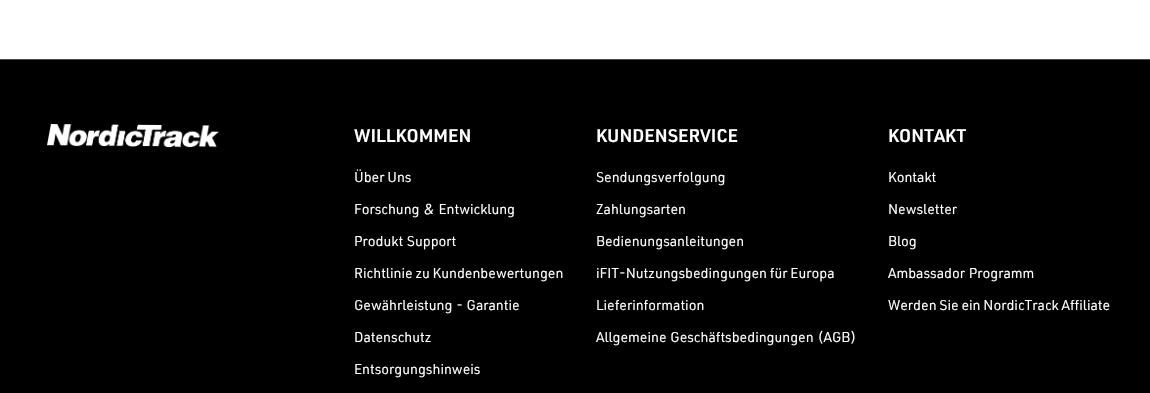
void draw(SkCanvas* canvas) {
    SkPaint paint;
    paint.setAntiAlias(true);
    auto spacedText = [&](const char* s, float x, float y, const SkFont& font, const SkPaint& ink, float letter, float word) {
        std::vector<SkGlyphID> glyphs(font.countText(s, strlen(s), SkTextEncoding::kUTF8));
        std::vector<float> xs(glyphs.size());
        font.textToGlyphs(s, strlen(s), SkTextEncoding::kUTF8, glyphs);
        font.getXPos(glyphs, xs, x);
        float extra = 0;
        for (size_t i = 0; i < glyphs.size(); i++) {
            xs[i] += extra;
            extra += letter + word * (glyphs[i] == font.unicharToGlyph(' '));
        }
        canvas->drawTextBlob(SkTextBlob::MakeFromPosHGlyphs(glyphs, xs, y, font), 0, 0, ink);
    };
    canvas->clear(0xFFFFFFFF);
    paint.setColor(0xFF000000);
    canvas->drawRect(SkRect::MakeXYWH(0, 60, 1150, 333), paint);
    paint.setColor(0xFF4D4D4D);
    canvas->drawRect(SkRect::MakeXYWH(0, 59, 1150, 1), paint);
    canvas->drawImageRect(SkImages::DeferredFromEncodedData(SkData::MakeFromFileName("img1.png")), SkRect::MakeXYWH(47, 124, 172, 24), SkSamplingOptions());
    SkFont font1(fontMgr->matchFamilyStyle("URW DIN", SkFontStyle(600, SkFontStyle::kNormal_Width, SkFontStyle::kUpright_Slant)), 18);
    font1.setSubpixel(true);
    paint.setColor(0xFFFFFFFF);
    canvas->drawString("WILLKOMMEN", 354, 142, font1, paint);
    SkFont font2(fontMgr->matchFamilyStyle("URW DIN", SkFontStyle::Normal()), 14);
    font2.setSubpixel(true);
    canvas->drawString("Über Uns", 354, 182, font2, paint);
    spacedText("Forschung & Entwicklung", 354, 214, font2, paint, 0, 1);
    spacedText("Produkt Support", 354, 246, font2, paint, 0, 1);
    canvas->drawString("Richtlinie zu Kundenbewertungen", 354, 278, font2, paint);
    spacedText("Gewährleistung - Garantie", 354, 310, font2, paint, 0, 1);
    canvas->drawString("Datenschutz", 354, 342, font2, paint);
    canvas->drawString("Entsorgungshinweis", 354, 374, font2, paint);
    canvas->drawString("KUNDENSERVICE", 596, 142, font1, paint);
    canvas->drawString("Sendungsverfolgung", 596, 182, font2, paint);
    canvas->drawString("Zahlungsarten", 596, 214, font2, paint);
    canvas->drawString("Bedienungsanleitungen", 596, 246, font2, paint);
    canvas->drawString("iFIT-Nutzungsbedingungen für Europa", 596, 278, font2, paint);
    canvas->drawString("Lieferinformation", 596, 310, font2, paint);
    spacedText("Allgemeine Geschäftsbedingungen (AGB)", 596, 342, font2, paint, 0, 1);
    canvas->drawString("KONTAKT", 888, 142, font1, paint);
    canvas->drawString("Kontakt", 888, 182, font2, paint);
    canvas->drawString("Newsletter", 888, 214, font2, paint);
    canvas->drawString("Blog", 888, 246, font2, paint);
    spacedText("Ambassador Programm", 888, 278, font2, paint, 0, 1);
    canvas->drawString("Werden Sie ein NordicTrack Affiliate", 888, 310, font2, paint);
}
